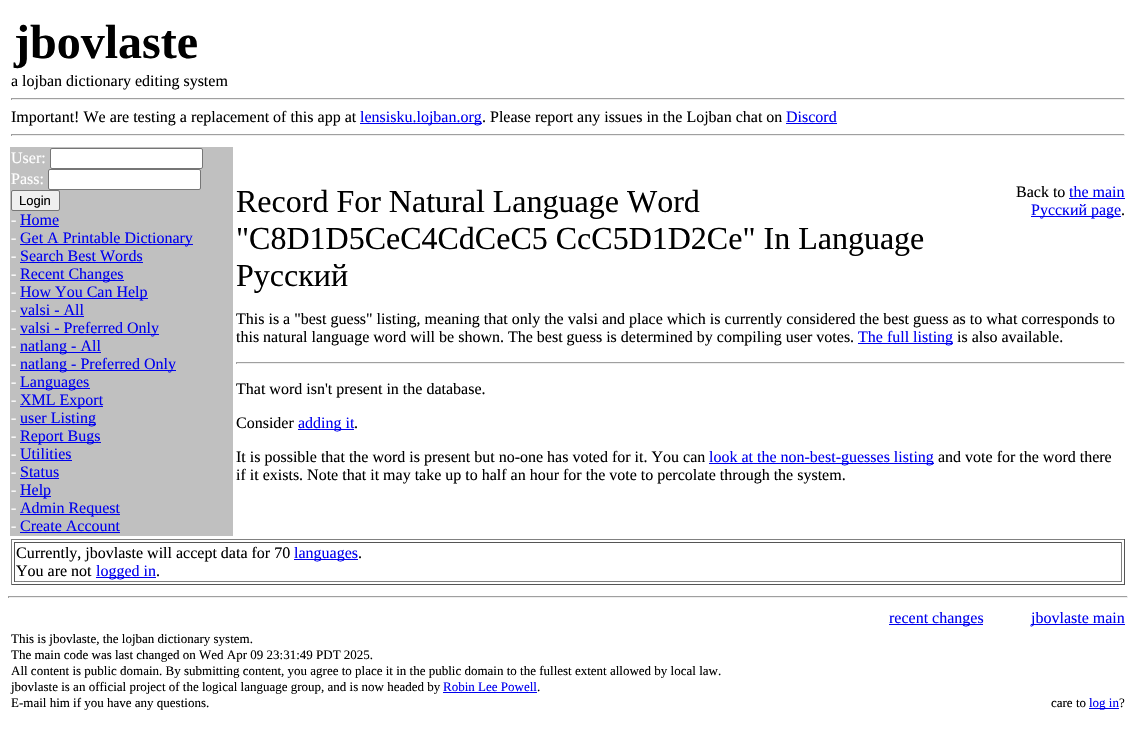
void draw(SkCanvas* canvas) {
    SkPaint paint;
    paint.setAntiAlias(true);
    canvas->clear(0xFFFFFFFF);
    SkFont font1(fontMgr->matchFamilyStyle("Liberation Serif", SkFontStyle::Bold()), 48);
    font1.setSubpixel(true);
    paint.setColor(0xFF000000);
    canvas->drawString("jbovlaste", 14, 58, font1, paint);
    SkFont font2(fontMgr->matchFamilyStyle("Liberation Serif", SkFontStyle::Normal()), 16);
    font2.setSubpixel(true);
    canvas->drawString("a lojban dictionary editing system", 11, 86, font2, paint);
    paint.setColor(0xFF9F9F9F);
    canvas->drawRect(SkRect::MakeXYWH(11, 98, 1114, 1), paint);
    paint.setColor(0xFFEEEEEE);
    canvas->drawRect(SkRect::MakeXYWH(1124, 98, 1, 2), paint);
    canvas->drawRect(SkRect::MakeXYWH(11, 99, 1114, 1), paint);
    paint.setColor(0xFF9F9F9F);
    canvas->drawRect(SkRect::MakeXYWH(11, 98, 1, 2), paint);
    paint.setColor(0xFF000000);
    canvas->drawString("Important! We are testing a replacement of this app at", 11, 122, font2, paint);
    paint.setColor(0xFF0000EE);
    canvas->drawRect(SkRect::MakeXYWH(360, 123, 122, 1), paint);
    canvas->drawString("lensisku.lojban.org", 360, 122, font2, paint);
    paint.setColor(0xFF000000);
    canvas->drawString(". Please report any issues in the Lojban chat on", 482, 122, font2, paint);
    paint.setColor(0xFF0000EE);
    canvas->drawString("Discord", 786, 122, font2, paint);
    canvas->drawRect(SkRect::MakeXYWH(786, 123, 51, 1), paint);
    paint.setColor(0xFF9F9F9F);
    canvas->drawRect(SkRect::MakeXYWH(11, 134, 1114, 1), paint);
    paint.setColor(0xFFEEEEEE);
    canvas->drawRect(SkRect::MakeXYWH(1124, 134, 1, 2), paint);
    canvas->drawRect(SkRect::MakeXYWH(11, 135, 1114, 1), paint);
    paint.setColor(0xFF9F9F9F);
    canvas->drawRect(SkRect::MakeXYWH(11, 134, 1, 2), paint);
    paint.setColor(0xFFC0C0C0);
    canvas->drawRect(SkRect::MakeXYWH(10, 147, 223, 389), paint);
    paint.setColor(0xFFFFFFFF);
    canvas->drawString("User:", 11, 163, font2, paint);
    canvas->drawRoundRect(SkRect::MakeXYWH(50.5f, 148.5f, 152, 20), 1.5f, 1.5f, paint);
    paint.setStyle(SkPaint::kStroke_Style);
    paint.setStrokeWidth(1);
    paint.setColor(0xFF767676);
    canvas->drawRoundRect(SkRect::MakeXYWH(50.5f, 148.5f, 152, 20), 1.5f, 1.5f, paint);
    paint.setStyle(SkPaint::kFill_Style);
    paint.setColor(0xFFFFFFFF);
    canvas->drawString("Pass:", 11, 184, font2, paint);
    canvas->drawRoundRect(SkRect::MakeXYWH(48.5f, 169.5f, 152, 20), 1.5f, 1.5f, paint);
    paint.setStyle(SkPaint::kStroke_Style);
    paint.setColor(0xFF767676);
    canvas->drawRoundRect(SkRect::MakeXYWH(48.5f, 169.5f, 152, 20), 1.5f, 1.5f, paint);
    paint.setStyle(SkPaint::kFill_Style);
    paint.setColor(0xFFEFEFEF);
    canvas->drawRoundRect(SkRect::MakeXYWH(11.5f, 190.5f, 48, 20), 1.5f, 1.5f, paint);
    paint.setStyle(SkPaint::kStroke_Style);
    paint.setColor(0xFF767676);
    canvas->drawRoundRect(SkRect::MakeXYWH(11.5f, 190.5f, 48, 20), 1.5f, 1.5f, paint);
    SkFont font3(fontMgr->matchFamilyStyle("Liberation Sans", SkFontStyle::Normal()), 13);
    font3.setSubpixel(true);
    paint.setStyle(SkPaint::kFill_Style);
    paint.setColor(0xFF000000);
    canvas->drawString("Login", 19, 205, font3, paint);
    paint.setColor(0xFFFFFFFF);
    canvas->drawString("-", 11, 225, font2, paint);
    paint.setColor(0xFF0000EE);
    canvas->drawString("Home", 20, 225, font2, paint);
    canvas->drawRect(SkRect::MakeXYWH(20, 226, 39, 1), paint);
    paint.setColor(0xFFFFFFFF);
    canvas->drawString("-", 11, 243, font2, paint);
    paint.setColor(0xFF0000EE);
    canvas->drawRect(SkRect::MakeXYWH(20, 244, 173, 1), paint);
    canvas->drawString("Get A Printable Dictionary", 20, 243, font2, paint);
    paint.setColor(0xFFFFFFFF);
    canvas->drawString("-", 11, 261, font2, paint);
    paint.setColor(0xFF0000EE);
    canvas->drawString("Search Best Words", 20, 261, font2, paint);
    canvas->drawRect(SkRect::MakeXYWH(20, 262, 123, 1), paint);
    paint.setColor(0xFFFFFFFF);
    canvas->drawString("-", 11, 279, font2, paint);
    paint.setColor(0xFF0000EE);
    canvas->drawRect(SkRect::MakeXYWH(20, 280, 104, 1), paint);
    canvas->drawString("Recent Changes", 20, 279, font2, paint);
    paint.setColor(0xFFFFFFFF);
    canvas->drawString("-", 11, 297, font2, paint);
    paint.setColor(0xFF0000EE);
    canvas->drawRect(SkRect::MakeXYWH(20, 298, 128, 1), paint);
    canvas->drawString("How You Can Help", 20, 297, font2, paint);
    paint.setColor(0xFFFFFFFF);
    canvas->drawString("-", 11, 315, font2, paint);
    paint.setColor(0xFF0000EE);
    canvas->drawString("valsi - All", 20, 315, font2, paint);
    canvas->drawRect(SkRect::MakeXYWH(20, 316, 64, 1), paint);
    paint.setColor(0xFFFFFFFF);
    canvas->drawString("-", 11, 333, font2, paint);
    paint.setColor(0xFF0000EE);
    canvas->drawRect(SkRect::MakeXYWH(20, 334, 139, 1), paint);
    canvas->drawString("valsi - Preferred Only", 20, 333, font2, paint);
    paint.setColor(0xFFFFFFFF);
    canvas->drawString("-", 11, 351, font2, paint);
    paint.setColor(0xFF0000EE);
    canvas->drawRect(SkRect::MakeXYWH(20, 352, 81, 1), paint);
    canvas->drawString("natlang - All", 20, 351, font2, paint);
    paint.setColor(0xFFFFFFFF);
    canvas->drawString("-", 11, 369, font2, paint);
    paint.setColor(0xFF0000EE);
    canvas->drawRect(SkRect::MakeXYWH(20, 370, 156, 1), paint);
    canvas->drawString("natlang - Preferred Only", 20, 369, font2, paint);
    paint.setColor(0xFFFFFFFF);
    canvas->drawString("-", 11, 387, font2, paint);
    paint.setColor(0xFF0000EE);
    canvas->drawRect(SkRect::MakeXYWH(20, 388, 70, 1), paint);
    canvas->drawString("Languages", 20, 387, font2, paint);
    paint.setColor(0xFFFFFFFF);
    canvas->drawString("-", 11, 405, font2, paint);
    paint.setColor(0xFF0000EE);
    canvas->drawRect(SkRect::MakeXYWH(20, 406, 83, 1), paint);
    canvas->drawString("XML Export", 20, 405, font2, paint);
    paint.setColor(0xFFFFFFFF);
    canvas->drawString("-", 11, 423, font2, paint);
    paint.setColor(0xFF0000EE);
    canvas->drawRect(SkRect::MakeXYWH(20, 424, 76, 1), paint);
    canvas->drawString("user Listing", 20, 423, font2, paint);
    paint.setColor(0xFFFFFFFF);
    canvas->drawString("-", 11, 441, font2, paint);
    paint.setColor(0xFF0000EE);
    canvas->drawRect(SkRect::MakeXYWH(20, 442, 81, 1), paint);
    canvas->drawString("Report Bugs", 20, 441, font2, paint);
    paint.setColor(0xFFFFFFFF);
    canvas->drawString("-", 11, 459, font2, paint);
    paint.setColor(0xFF0000EE);
    canvas->drawString("Utilities", 20, 459, font2, paint);
    canvas->drawRect(SkRect::MakeXYWH(20, 460, 52, 1), paint);
    paint.setColor(0xFFFFFFFF);
    canvas->drawString("-", 11, 477, font2, paint);
    paint.setColor(0xFF0000EE);
    canvas->drawString("Status", 20, 477, font2, paint);
    canvas->drawRect(SkRect::MakeXYWH(20, 478, 39, 1), paint);
    paint.setColor(0xFFFFFFFF);
    canvas->drawString("-", 11, 495, font2, paint);
    paint.setColor(0xFF0000EE);
    canvas->drawRect(SkRect::MakeXYWH(20, 496, 31, 1), paint);
    canvas->drawString("Help", 20, 495, font2, paint);
    paint.setColor(0xFFFFFFFF);
    canvas->drawString("-", 11, 513, font2, paint);
    paint.setColor(0xFF0000EE);
    canvas->drawRect(SkRect::MakeXYWH(20, 514, 100, 1), paint);
    canvas->drawString("Admin Request", 20, 513, font2, paint);
    paint.setColor(0xFFFFFFFF);
    canvas->drawString("-", 11, 531, font2, paint);
    paint.setColor(0xFF0000EE);
    canvas->drawString("Create Account", 20, 531, font2, paint);
    canvas->drawRect(SkRect::MakeXYWH(20, 532, 100, 1), paint);
    SkFont font4(fontMgr->matchFamilyStyle("Liberation Serif", SkFontStyle::Normal()), 32);
    font4.setSubpixel(true);
    paint.setColor(0xFF000000);
    canvas->drawString("Record For Natural Language Word", 236, 212, font4, paint);
    canvas->drawString("\"C8D1D5CeC4CdCeC5 CcC5D1D2Ce\" In Language", 236, 249, font4, paint);
    canvas->drawString("Русский", 236, 286, font4, paint);
    canvas->drawString("Back to", 1016, 197, font2, paint);
    paint.setColor(0xFF0000EE);
    canvas->drawString("the main", 1069, 197, font2, paint);
    canvas->drawRect(SkRect::MakeXYWH(1069, 198, 56, 1), paint);
    canvas->drawRect(SkRect::MakeXYWH(1031, 216, 90, 1), paint);
    canvas->drawString("Русский page", 1031, 215, font2, paint);
    paint.setColor(0xFF000000);
    canvas->drawString(".", 1121, 215, font2, paint);
    canvas->drawString("This is a \"best guess\" listing, meaning that only the valsi and place which is currently considered the best guess as to what corresponds to", 236, 324, font2, paint);
    canvas->drawString("this natural language word will be shown. The best guess is determined by compiling user votes.", 236, 342, font2, paint);
    paint.setColor(0xFF0000EE);
    canvas->drawRect(SkRect::MakeXYWH(858, 343, 95, 1), paint);
    canvas->drawString("The full listing", 858, 342, font2, paint);
    paint.setColor(0xFF000000);
    canvas->drawString("is also available.", 957, 342, font2, paint);
    paint.setColor(0xFF9F9F9F);
    canvas->drawRect(SkRect::MakeXYWH(236, 362, 889, 1), paint);
    paint.setColor(0xFFEEEEEE);
    canvas->drawRect(SkRect::MakeXYWH(1124, 362, 1, 2), paint);
    canvas->drawRect(SkRect::MakeXYWH(236, 363, 889, 1), paint);
    paint.setColor(0xFF9F9F9F);
    canvas->drawRect(SkRect::MakeXYWH(236, 362, 1, 2), paint);
    paint.setColor(0xFF000000);
    canvas->drawString("That word isn't present in the database.", 236, 394, font2, paint);
    canvas->drawString("Consider", 236, 428, font2, paint);
    paint.setColor(0xFF0000EE);
    canvas->drawRect(SkRect::MakeXYWH(298, 429, 56, 1), paint);
    canvas->drawString("adding it", 298, 428, font2, paint);
    paint.setColor(0xFF000000);
    canvas->drawString(".", 354, 428, font2, paint);
    canvas->drawString("It is possible that the word is present but no-one has voted for it. You can", 236, 462, font2, paint);
    paint.setColor(0xFF0000EE);
    canvas->drawRect(SkRect::MakeXYWH(709, 463, 225, 1), paint);
    canvas->drawString("look at the non-best-guesses listing", 709, 462, font2, paint);
    paint.setColor(0xFF000000);
    canvas->drawString("and vote for the word there", 938, 462, font2, paint);
    canvas->drawString("if it exists. Note that it may take up to half an hour for the vote to percolate through the system.", 236, 480, font2, paint);
    paint.setColor(0xFF808080);
    canvas->drawRect(SkRect::MakeXYWH(11, 539, 1114, 1), paint);
    paint.setColor(0xFF555555);
    canvas->drawRect(SkRect::MakeXYWH(1124, 539, 1, 46), paint);
    canvas->drawRect(SkRect::MakeXYWH(11, 584, 1114, 1), paint);
    paint.setColor(0xFF808080);
    canvas->drawRect(SkRect::MakeXYWH(11, 539, 1, 46), paint);
    paint.setColor(0xFF555555);
    canvas->drawRect(SkRect::MakeXYWH(14, 542, 1108, 1), paint);
    paint.setColor(0xFF808080);
    canvas->drawRect(SkRect::MakeXYWH(1121, 542, 1, 40), paint);
    canvas->drawRect(SkRect::MakeXYWH(14, 581, 1108, 1), paint);
    paint.setColor(0xFF555555);
    canvas->drawRect(SkRect::MakeXYWH(14, 542, 1, 40), paint);
    paint.setColor(0xFF000000);
    canvas->drawString("Currently, jbovlaste will accept data for 70", 16, 558, font2, paint);
    paint.setColor(0xFF0000EE);
    canvas->drawRect(SkRect::MakeXYWH(294, 559, 64, 1), paint);
    canvas->drawString("languages", 294, 558, font2, paint);
    paint.setColor(0xFF000000);
    canvas->drawString(".", 358, 558, font2, paint);
    canvas->drawString("You are not", 16, 576, font2, paint);
    paint.setColor(0xFF0000EE);
    canvas->drawRect(SkRect::MakeXYWH(96, 577, 60, 1), paint);
    canvas->drawString("logged in", 96, 576, font2, paint);
    paint.setColor(0xFF000000);
    canvas->drawString(".", 156, 576, font2, paint);
    paint.setColor(0xFF9F9F9F);
    canvas->drawRect(SkRect::MakeXYWH(8, 596, 1120, 1), paint);
    paint.setColor(0xFFEEEEEE);
    canvas->drawRect(SkRect::MakeXYWH(1127, 596, 1, 2), paint);
    canvas->drawRect(SkRect::MakeXYWH(8, 597, 1120, 1), paint);
    paint.setColor(0xFF9F9F9F);
    canvas->drawRect(SkRect::MakeXYWH(8, 596, 1, 2), paint);
    paint.setColor(0xFF0000EE);
    canvas->drawRect(SkRect::MakeXYWH(889, 624, 94, 1), paint);
    canvas->drawString("recent changes", 889, 623, font2, paint);
    canvas->drawRect(SkRect::MakeXYWH(1031, 624, 94, 1), paint);
    canvas->drawString("jbovlaste main", 1031, 623, font2, paint);
    SkFont font5(fontMgr->matchFamilyStyle("Liberation Serif", SkFontStyle::Normal()), 13);
    font5.setSubpixel(true);
    paint.setColor(0xFF000000);
    canvas->drawString("This is jbovlaste, the lojban dictionary system.", 11, 643, font5, paint);
    canvas->drawString("The main code was last changed on Wed Apr 09 23:31:49 PDT 2025.", 11, 659, font5, paint);
    canvas->drawString("All content is public domain. By submitting content, you agree to place it in the public domain to the fullest extent allowed by local law.", 11, 675, font5, paint);
    canvas->drawString("jbovlaste is an official project of the logical language group, and is now headed by", 11, 691, font5, paint);
    paint.setColor(0xFF0000EE);
    canvas->drawString("Robin Lee Powell", 443, 691, font5, paint);
    paint.setColor(0xFF000000);
    canvas->drawString(".", 537, 691, font5, paint);
    paint.setColor(0xFF0000EE);
    canvas->drawRect(SkRect::MakeXYWH(443, 692, 94, 1), paint);
    paint.setColor(0xFF000000);
    canvas->drawString("E-mail him if you have any questions.", 11, 707, font5, paint);
    canvas->drawString("care to", 1051, 707, font5, paint);
    paint.setColor(0xFF0000EE);
    canvas->drawRect(SkRect::MakeXYWH(1089, 708, 30, 1), paint);
    canvas->drawString("log in", 1089, 707, font5, paint);
    paint.setColor(0xFF000000);
    canvas->drawString("?", 1119, 707, font5, paint);
}
